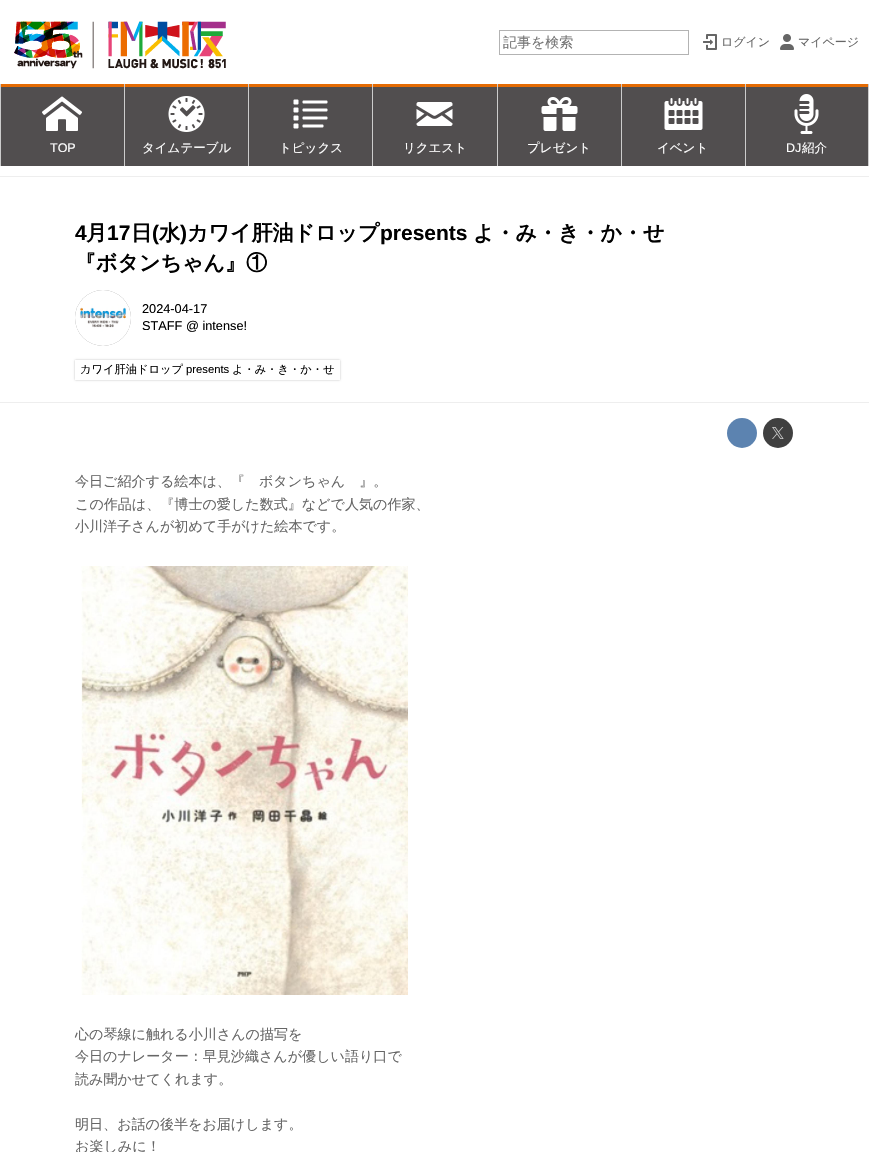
void draw(SkCanvas* canvas) {
    SkPaint paint;
    paint.setAntiAlias(true);
    canvas->clear(0xFFFFFFFF);
    canvas->drawImageRect(SkImages::DeferredFromEncodedData(SkData::MakeFromFileName("img1.png")), SkRect::MakeXYWH(14, 21, 212, 48), SkSamplingOptions());
    paint.setStyle(SkPaint::kStroke_Style);
    paint.setStrokeWidth(1);
    paint.setColor(0xFFB3B3B3);
    canvas->drawRect(SkRect::MakeXYWH(499.5f, 30.5f, 189, 24), paint);
    SkFont font1(fontMgr->matchFamilyStyle("WenQuanYi Zen Hei", SkFontStyle(500, SkFontStyle::kNormal_Width, SkFontStyle::kUpright_Slant)), 14);
    font1.setSubpixel(true);
    paint.setStyle(SkPaint::kFill_Style);
    paint.setColor(0xFF757575);
    canvas->drawString("記事を検索", 503, 47, font1, paint);
    canvas->drawImageRect(SkImages::DeferredFromEncodedData(SkData::MakeFromFileName("img2.png")), SkRect::MakeXYWH(703, 34, 14, 16), SkSamplingOptions());
    SkFont font2(fontMgr->matchFamilyStyle("WenQuanYi Zen Hei", SkFontStyle(500, SkFontStyle::kNormal_Width, SkFontStyle::kUpright_Slant)), 12);
    font2.setSubpixel(true);
    paint.setColor(0xFF666666);
    canvas->drawString("ログイン", 721, 46, font2, paint);
    canvas->drawImageRect(SkImages::DeferredFromEncodedData(SkData::MakeFromFileName("img3.png")), SkRect::MakeXYWH(780, 34, 14, 16), SkSamplingOptions());
    canvas->drawString("マイページ", 798, 46, font2, paint);
    paint.setColor(0xFF514E4F);
    canvas->drawRect(SkRect::MakeXYWH(1, 87, 867, 79), paint);
    canvas->drawImageRect(SkImages::DeferredFromEncodedData(SkData::MakeFromFileName("img4.png")), SkRect::MakeXYWH(42, 96, 40, 35), SkSamplingOptions());
    paint.setColor(0xFFE46B04);
    canvas->drawRect(SkRect::MakeXYWH(0, 84, 869, 3), paint);
    paint.setColor(0xFFCCCCCC);
    canvas->drawRect(SkRect::MakeXYWH(0, 84, 1, 82), paint);
    SkFont font3(fontMgr->matchFamilyStyle("Liberation Sans", SkFontStyle::Normal()), 12.5f);
    font3.setSubpixel(true);
    paint.setColor(0xFFFFFFFF);
    canvas->drawString("TOP", 50, 152, font3, paint);
    canvas->drawImageRect(SkImages::DeferredFromEncodedData(SkData::MakeFromFileName("img5.png")), SkRect::MakeXYWH(168, 96, 37, 36), SkSamplingOptions());
    paint.setColor(0xFFCCCCCC);
    canvas->drawRect(SkRect::MakeXYWH(124, 84, 1, 82), paint);
    SkFont font4(fontMgr->matchFamilyStyle("WenQuanYi Zen Hei", SkFontStyle(500, SkFontStyle::kNormal_Width, SkFontStyle::kUpright_Slant)), 12.5f);
    font4.setSubpixel(true);
    paint.setColor(0xFFFFFFFF);
    canvas->drawString("タイムテーブル", 142, 152, font4, paint);
    canvas->drawImageRect(SkImages::DeferredFromEncodedData(SkData::MakeFromFileName("img6.png")), SkRect::MakeXYWH(293, 99, 35, 30), SkSamplingOptions());
    paint.setColor(0xFFCCCCCC);
    canvas->drawRect(SkRect::MakeXYWH(248, 84, 1, 82), paint);
    paint.setColor(0xFFFFFFFF);
    canvas->drawString("トピックス", 279, 152, font4, paint);
    canvas->drawImageRect(SkImages::DeferredFromEncodedData(SkData::MakeFromFileName("img7.png")), SkRect::MakeXYWH(416, 102, 37, 24), SkSamplingOptions());
    paint.setColor(0xFFCCCCCC);
    canvas->drawRect(SkRect::MakeXYWH(372, 84, 1, 82), paint);
    paint.setColor(0xFFFFFFFF);
    canvas->drawString("リクエスト", 403, 152, font4, paint);
    canvas->drawImageRect(SkImages::DeferredFromEncodedData(SkData::MakeFromFileName("img8.png")), SkRect::MakeXYWH(541, 97, 37, 34), SkSamplingOptions());
    paint.setColor(0xFFCCCCCC);
    canvas->drawRect(SkRect::MakeXYWH(497, 84, 1, 82), paint);
    paint.setColor(0xFFFFFFFF);
    canvas->drawString("プレゼント", 527, 152, font4, paint);
    canvas->drawImageRect(SkImages::DeferredFromEncodedData(SkData::MakeFromFileName("img9.png")), SkRect::MakeXYWH(664, 98, 39, 32), SkSamplingOptions());
    paint.setColor(0xFFCCCCCC);
    canvas->drawRect(SkRect::MakeXYWH(621, 84, 1, 82), paint);
    paint.setColor(0xFFFFFFFF);
    canvas->drawString("イベント", 657, 152, font4, paint);
    canvas->drawImageRect(SkImages::DeferredFromEncodedData(SkData::MakeFromFileName("img10.png")), SkRect::MakeXYWH(794, 94, 25, 40), SkSamplingOptions());
    paint.setColor(0xFFCCCCCC);
    canvas->drawRect(SkRect::MakeXYWH(868, 84, 1, 82), paint);
    canvas->drawRect(SkRect::MakeXYWH(745, 84, 1, 82), paint);
    paint.setColor(0xFFFFFFFF);
    canvas->drawString("DJ", 786, 152, font3, paint);
    canvas->drawString("紹介", 802, 152, font4, paint);
    paint.setColor(0xFFEEEEEE);
    canvas->drawRect(SkRect::MakeXYWH(0, 176, 869, 1), paint);
    canvas->drawRect(SkRect::MakeXYWH(0, 402, 869, 1), paint);
    SkFont font5(fontMgr->matchFamilyStyle("Liberation Sans", SkFontStyle::Bold()), 21);
    font5.setSubpixel(true);
    paint.setColor(0xFF000000);
    canvas->drawString("4", 75, 240, font5, paint);
    SkFont font6(fontMgr->matchFamilyStyle("WenQuanYi Zen Hei", SkFontStyle::Bold()), 21);
    font6.setSubpixel(true);
    canvas->drawString("月", 86, 240, font6, paint);
    canvas->drawString("17", 107, 240, font5, paint);
    canvas->drawString("日", 131, 240, font6, paint);
    canvas->drawString("(", 152, 240, font5, paint);
    canvas->drawString("水", 159, 240, font6, paint);
    canvas->drawString(")", 180, 240, font5, paint);
    canvas->drawString("カワイ肝油ドロップ", 187, 240, font6, paint);
    canvas->drawString("presents", 380, 240, font5, paint);
    canvas->drawString("よ・み・き・か・せ", 473, 240, font6, paint);
    canvas->drawString("『ボタンちゃん』①", 75, 270, font6, paint);
    paint.setColor(0xFF888888);
    canvas->drawCircle(103, 318, 28, paint);
    canvas->drawImageRect(SkImages::DeferredFromEncodedData(SkData::MakeFromFileName("img11.png")), SkRect::MakeXYWH(75, 290, 56, 56), SkSamplingOptions());
    SkFont font7(fontMgr->matchFamilyStyle("Liberation Sans", SkFontStyle::Normal()), 12.75f);
    font7.setSubpixel(true);
    paint.setColor(0xFF000000);
    canvas->drawString("2024-04-17", 142, 313, font7, paint);
    canvas->drawString("STAFF @ intense!", 142, 330, font7, paint);
    canvas->save();
    canvas->clipPath(SkPathBuilder(SkPathFillType::kEvenOdd).moveTo(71, 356).lineTo(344, 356).lineTo(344, 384).lineTo(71, 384).close().moveTo(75, 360).lineTo(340, 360).lineTo(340, 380).lineTo(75, 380).close().detach(), true);
    paint.setColor(0x40000000);
    paint.setMaskFilter(SkMaskFilter::MakeBlur(kNormal_SkBlurStyle, 1));
    canvas->drawRect(SkRect::MakeXYWH(75, 360, 265, 20), paint);
    paint.setMaskFilter(nullptr);
    canvas->restore();
    SkFont font8(fontMgr->matchFamilyStyle("WenQuanYi Zen Hei", SkFontStyle(500, SkFontStyle::kNormal_Width, SkFontStyle::kUpright_Slant)), 11.25f);
    font8.setSubpixel(true);
    paint.setColor(0xFF000000);
    canvas->drawString("カワイ肝油ドロップ", 80, 373, font8, paint);
    SkFont font9(fontMgr->matchFamilyStyle("Liberation Sans", SkFontStyle::Normal()), 11.25f);
    font9.setSubpixel(true);
    canvas->drawString("presents", 186, 373, font9, paint);
    canvas->drawString("よ・み・き・か・せ", 232, 373, font8, paint);
    paint.setColor(0xFF5C83B0);
    canvas->drawCircle(742, 433, 15, paint);
    paint.setColor(0xFF404040);
    canvas->drawCircle(778, 433, 15, paint);
    canvas->drawImageRect(SkImages::DeferredFromEncodedData(SkData::MakeFromFileName("img12.png")), SkRect::MakeXYWH(772, 427, 12, 12), SkSamplingOptions());
    SkFont font10(fontMgr->matchFamilyStyle("WenQuanYi Zen Hei", SkFontStyle(500, SkFontStyle::kNormal_Width, SkFontStyle::kUpright_Slant)), 14.05f);
    font10.setSubpixel(true);
    paint.setColor(0xFF666666);
    canvas->drawString("今日ご紹介する絵本は、『　ボタンちゃん　』。", 75, 486, font10, paint);
    canvas->drawString("この作品は、『博士の愛した数式』などで人気の作家、", 75, 509, font10, paint);
    canvas->drawString("小川洋子さんが初めて手がけた絵本です。", 75, 531, font10, paint);
    canvas->drawImageRect(SkImages::DeferredFromEncodedData(SkData::MakeFromFileName("img13.png")), SkRect::MakeXYWH(81, 566, 327, 429), SkSamplingOptions());
    canvas->drawString("心の琴線に触れる小川さんの描写を", 75, 1039, font10, paint);
    canvas->drawString("今日のナレーター：早見沙織さんが優しい語り口で", 75, 1061, font10, paint);
    canvas->drawString("読み聞かせてくれます。", 75, 1084, font10, paint);
    canvas->drawString("明日、お話の後半をお届けします。", 75, 1129, font10, paint);
    canvas->drawString("お楽しみに！", 75, 1151, font10, paint);
}
